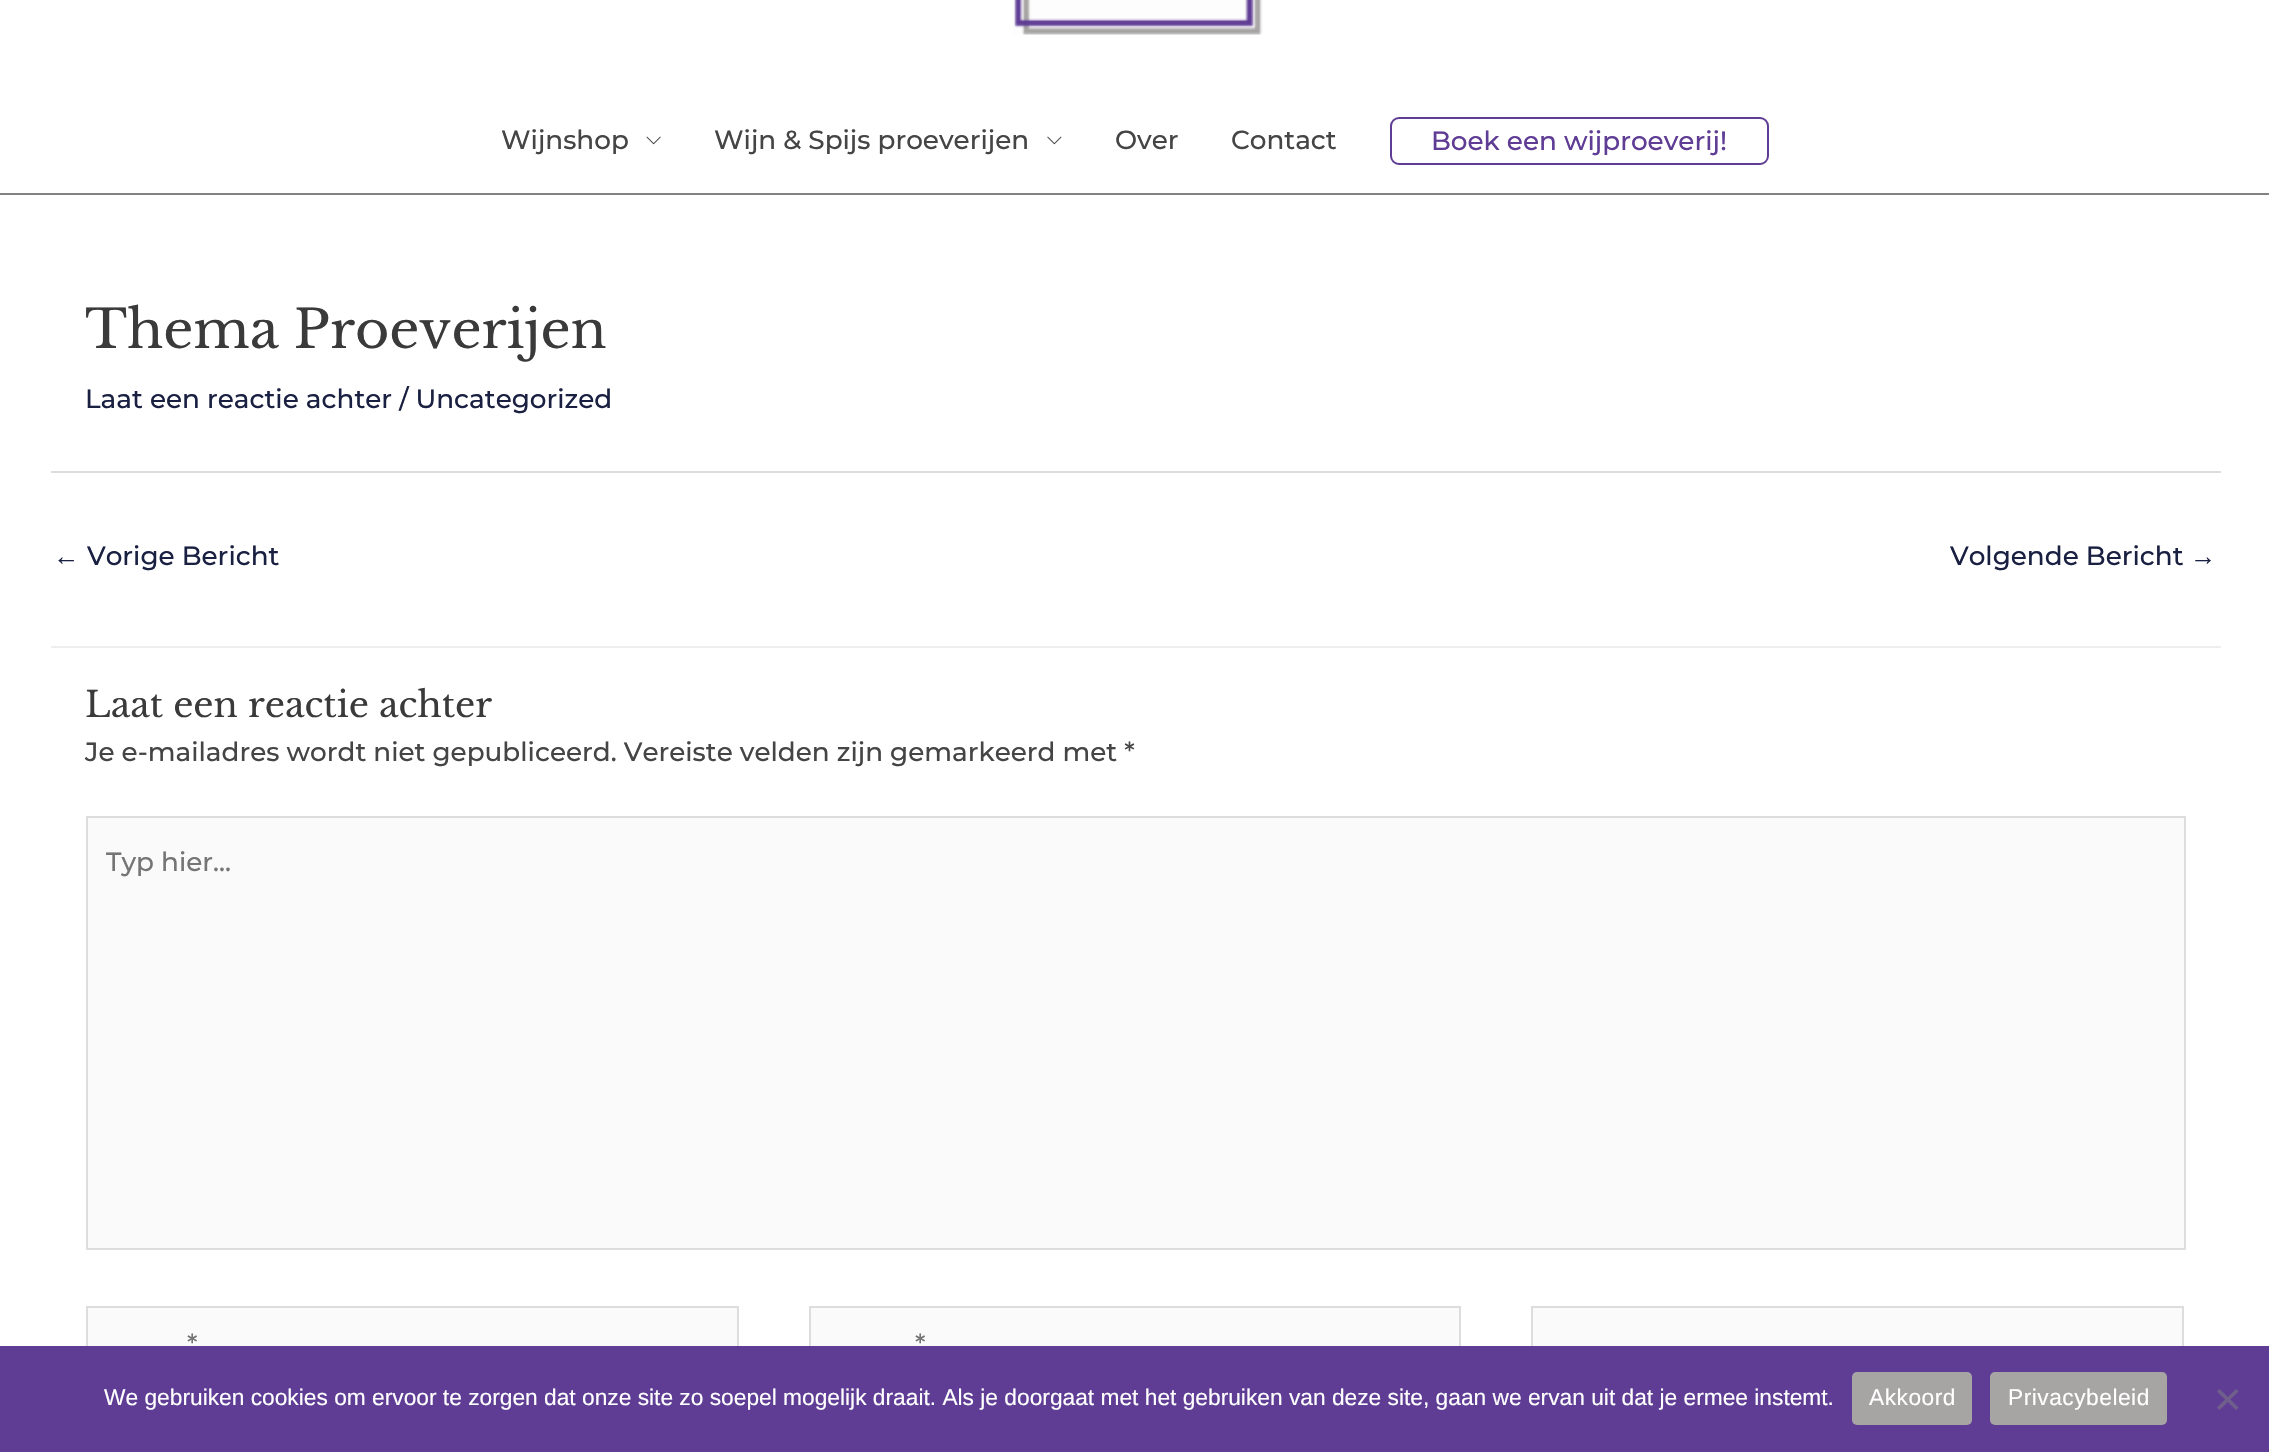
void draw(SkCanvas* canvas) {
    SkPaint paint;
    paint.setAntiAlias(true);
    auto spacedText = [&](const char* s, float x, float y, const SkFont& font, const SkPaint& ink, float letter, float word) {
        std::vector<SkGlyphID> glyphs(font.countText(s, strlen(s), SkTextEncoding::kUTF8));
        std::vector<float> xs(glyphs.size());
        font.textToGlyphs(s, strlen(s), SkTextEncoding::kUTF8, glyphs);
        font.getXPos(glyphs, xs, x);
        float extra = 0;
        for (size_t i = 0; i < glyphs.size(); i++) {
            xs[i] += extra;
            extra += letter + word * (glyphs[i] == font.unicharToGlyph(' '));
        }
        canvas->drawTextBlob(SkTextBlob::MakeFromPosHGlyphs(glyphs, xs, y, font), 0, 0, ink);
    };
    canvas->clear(0xFFFFFFFF);
    paint.setColor(0xFF828282);
    canvas->drawRect(SkRect::MakeXYWH(0, 193, 2269, 2), paint);
    canvas->drawImageRect(SkImages::DeferredFromEncodedData(SkData::MakeFromFileName("img1.png")), SkRect::MakeXYWH(1013, 0, 250, 35), SkSamplingOptions());
    SkFont font1(fontMgr->matchFamilyStyle("Montserrat", SkFontStyle(100, SkFontStyle::kNormal_Width, SkFontStyle::kUpright_Slant)), 26.25f);
    font1.setSubpixel(true);
    paint.setColor(0xFF454545);
    canvas->drawString("Wijnshop", 501, 149, font1, paint);
    canvas->drawImageRect(SkImages::DeferredFromEncodedData(SkData::MakeFromFileName("img2.png")), SkRect::MakeXYWH(646, 136, 15, 9), SkSamplingOptions());
    canvas->drawString("Wijn & Spijs proeverijen", 714, 149, font1, paint);
    canvas->drawImageRect(SkImages::DeferredFromEncodedData(SkData::MakeFromFileName("img3.png")), SkRect::MakeXYWH(1047, 136, 15, 9), SkSamplingOptions());
    canvas->drawString("Over", 1115, 149, font1, paint);
    canvas->drawString("Contact", 1231, 149, font1, paint);
    paint.setStyle(SkPaint::kStroke_Style);
    paint.setStrokeWidth(2);
    paint.setColor(0xFF603D95);
    canvas->drawRoundRect(SkRect::MakeXYWH(1391, 118, 377, 46), 8, 8, paint);
    paint.setStyle(SkPaint::kFill_Style);
    canvas->drawString("Boek een wijproeverij!", 1431, 150, font1, paint);
    SkFont font2(fontMgr->matchFamilyStyle("Libre Baskerville", SkFontStyle::Normal()), 52.5f);
    font2.setSubpixel(true);
    paint.setColor(0xFF3A3A3A);
    canvas->drawString("Thema Proeverijen", 85, 348, font2, paint);
    paint.setColor(0xFF1A2041);
    canvas->drawString("Laat een reactie achter / Uncategorized", 85, 408, font1, paint);
    paint.setColor(0xFFDDDDDD);
    canvas->drawRect(SkRect::MakeXYWH(51, 471, 2170, 2), paint);
    SkFont font3(fontMgr->matchFamilyStyle("Liberation Sans", SkFontStyle::Normal()), 26.25f);
    font3.setSubpixel(true);
    paint.setColor(0xFF1A2041);
    canvas->drawString("←", 53, 565, font3, paint);
    canvas->drawString("Vorige Bericht", 87, 565, font1, paint);
    canvas->drawString("Volgende Bericht", 1950, 565, font1, paint);
    canvas->drawString("→", 2190, 565, font3, paint);
    paint.setColor(0xFFEEEEEE);
    canvas->drawRect(SkRect::MakeXYWH(51, 646, 2170, 2), paint);
    SkFont font4(fontMgr->matchFamilyStyle("Libre Baskerville", SkFontStyle::Normal()), 35.25f);
    font4.setSubpixel(true);
    paint.setColor(0xFF3A3A3A);
    canvas->drawString("Laat een reactie achter", 85, 717, font4, paint);
    paint.setColor(0xFF454545);
    canvas->drawString("Je e-mailadres wordt niet gepubliceerd. Vereiste velden zijn gemarkeerd met *", 85, 761, font1, paint);
    paint.setColor(0xFFFAFAFA);
    canvas->drawRect(SkRect::MakeXYWH(87, 817, 2098, 432), paint);
    paint.setStyle(SkPaint::kStroke_Style);
    paint.setColor(0xFFDDDDDD);
    canvas->drawRect(SkRect::MakeXYWH(87, 817, 2098, 432), paint);
    paint.setStyle(SkPaint::kFill_Style);
    paint.setColor(0xFF757575);
    canvas->drawString("Typ hier...", 106, 871, font1, paint);
    paint.setColor(0xFFFAFAFA);
    canvas->drawRect(SkRect::MakeXYWH(88, 1308, 649, 38), paint);
    paint.setStyle(SkPaint::kStroke_Style);
    paint.setColor(0xFFDDDDDD);
    canvas->drawRect(SkRect::MakeXYWH(87, 1307, 651, 75), paint);
    paint.setStyle(SkPaint::kFill_Style);
    paint.setColor(0xFF757575);
    canvas->drawString("*", 187, 1353, font1, paint);
    paint.setColor(0xFFFAFAFA);
    canvas->drawRect(SkRect::MakeXYWH(811, 1308, 648, 38), paint);
    paint.setStyle(SkPaint::kStroke_Style);
    paint.setColor(0xFFDDDDDD);
    canvas->drawRect(SkRect::MakeXYWH(810, 1307, 650, 75), paint);
    paint.setStyle(SkPaint::kFill_Style);
    paint.setColor(0xFF757575);
    canvas->drawString("*", 915, 1353, font1, paint);
    paint.setColor(0xFFFAFAFA);
    canvas->drawRect(SkRect::MakeXYWH(1533, 1308, 649, 38), paint);
    paint.setStyle(SkPaint::kStroke_Style);
    paint.setColor(0xFFDDDDDD);
    canvas->drawRect(SkRect::MakeXYWH(1532, 1307, 651, 75), paint);
    paint.setStyle(SkPaint::kFill_Style);
    paint.setColor(0xFF603D95);
    canvas->drawRect(SkRect::MakeXYWH(0, 1346, 2269, 106), paint);
    SkFont font5(fontMgr->matchFamilyStyle("Liberation Sans", SkFontStyle::Normal()), 22.75f);
    font5.setSubpixel(true);
    paint.setColor(0xFFFFFFFF);
    canvas->drawString("We gebruiken cookies om ervoor te zorgen dat onze site zo soepel mogelijk draait. Als je doorgaat met het gebruiken van deze site, gaan we ervan uit dat je ermee instemt.", 104, 1405, font5, paint);
    paint.setColor(0xFFA7A4A4);
    canvas->drawRoundRect(SkRect::MakeXYWH(1852, 1372, 120, 53), 5, 5, paint);
    paint.setColor(0xFFFFFFFF);
    spacedText("Akkoord", 1869, 1405, font5, paint, 0.5f, 0);
    paint.setColor(0xFFA7A4A4);
    canvas->drawRoundRect(SkRect::MakeXYWH(1990, 1372, 177, 53), 5, 5, paint);
    paint.setColor(0xFFFFFFFF);
    spacedText("Privacybeleid", 2008, 1405, font5, paint, 0.5f, 0);
    paint.setColor(0xFF705F8B);
    canvas->drawPath(SkPathBuilder().moveTo(2236, 1389).lineTo(2238.5f, 1391.5f).lineTo(2219.5f, 1410).lineTo(2217, 1407.5f).close().detach(), paint);
    canvas->drawPath(SkPathBuilder().moveTo(2217, 1391.5f).lineTo(2219.5f, 1389).lineTo(2238.5f, 1407.5f).lineTo(2236, 1410).close().detach(), paint);
}
